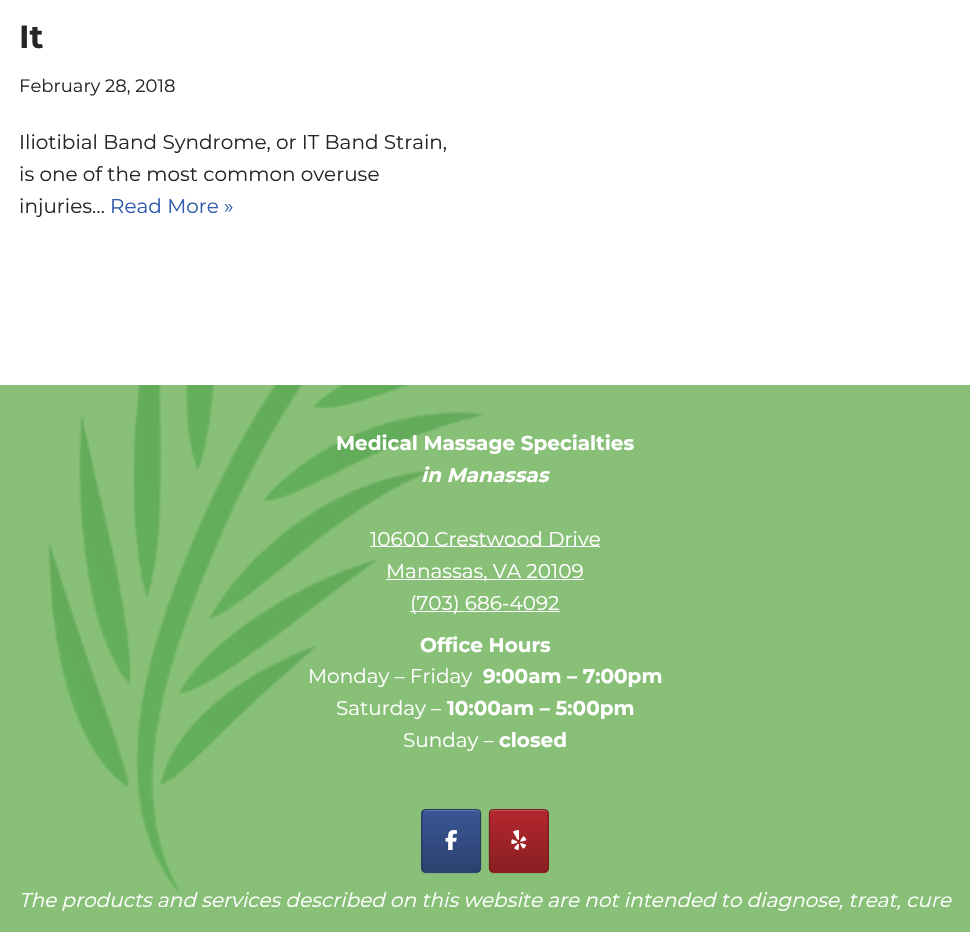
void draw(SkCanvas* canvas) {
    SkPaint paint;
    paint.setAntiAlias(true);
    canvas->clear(0xFFFFFFFF);
    paint.setColor(0xFF89C078);
    canvas->drawRect(SkRect::MakeXYWH(0, 385, 970, 547), paint);
    SkFont font1(fontMgr->matchFamilyStyle("Montserrat", SkFontStyle::Bold()), 32);
    font1.setSubpixel(true);
    paint.setColor(0xFF272626);
    canvas->drawString("It", 19, 48, font1, paint);
    SkFont font2(fontMgr->matchFamilyStyle("Montserrat", SkFontStyle::Normal()), 18);
    font2.setSubpixel(true);
    canvas->drawString("February 28, 2018", 19, 92, font2, paint);
    SkFont font3(fontMgr->matchFamilyStyle("Montserrat", SkFontStyle::Normal()), 20);
    font3.setSubpixel(true);
    canvas->drawString("Iliotibial Band Syndrome, or IT Band Strain,", 19, 149, font3, paint);
    canvas->drawString("is one of the most common overuse", 19, 181, font3, paint);
    canvas->drawString("injuries…", 19, 213, font3, paint);
    paint.setColor(0xFF2F5AAE);
    canvas->drawString("Read More »", 110, 213, font3, paint);
    canvas->drawImageRect(SkImages::DeferredFromEncodedData(SkData::MakeFromFileName("img1.png")), SkRect::MakeXYWH(48, 385, 438, 511), SkSamplingOptions());
    SkFont font4(fontMgr->matchFamilyStyle("Montserrat", SkFontStyle::Bold()), 20);
    font4.setSubpixel(true);
    paint.setColor(0xFFFFFFFF);
    canvas->drawString("Medical Massage Specialties", 336, 450, font4, paint);
    SkFont font5(fontMgr->matchFamilyStyle("Montserrat", SkFontStyle::BoldItalic()), 20);
    font5.setSubpixel(true);
    canvas->drawString("in Manassas", 421, 482, font5, paint);
    canvas->drawRect(SkRect::MakeXYWH(370, 546, 230, 1), paint);
    canvas->drawString("10600 Crestwood Drive", 370, 546, font3, paint);
    canvas->drawRect(SkRect::MakeXYWH(386, 579, 198, 1), paint);
    canvas->drawString("Manassas, VA 20109", 386, 578, font3, paint);
    canvas->drawRect(SkRect::MakeXYWH(410, 611, 150, 1), paint);
    canvas->drawString("(703) 686-4092", 410, 610, font3, paint);
    canvas->drawString("Office Hours", 420, 652, font4, paint);
    canvas->drawString("Monday – Friday", 308, 683, font3, paint);
    canvas->drawString("9:00am – 7:00pm", 483, 683, font4, paint);
    canvas->drawString("Saturday –", 336, 715, font3, paint);
    canvas->drawString("10:00am – 5:00pm", 447, 715, font4, paint);
    canvas->drawString("Sunday –", 403, 747, font3, paint);
    canvas->drawString("closed", 499, 747, font4, paint);
    paint.setColor(0x12000000);
    paint.setMaskFilter(SkMaskFilter::MakeBlur(kNormal_SkBlurStyle, 1));
    canvas->drawRoundRect(SkRect::MakeXYWH(421, 810, 60, 64), 5, 5, paint);
    paint.setMaskFilter(nullptr);
    canvas->save();
    canvas->clipPath(SkPathBuilder().moveTo(426, 809).lineTo(476, 809).cubicTo(479, 809, 481, 811, 481, 814).lineTo(481, 868).cubicTo(481, 871, 479, 873, 476, 873).lineTo(426, 873).cubicTo(423, 873, 421, 871, 421, 868).lineTo(421, 814).cubicTo(421, 811, 423, 809, 426, 809).close().detach(), true);
    {
        const SkColor colors[] = {0xFF2C4270, 0xFF3A5795};
        const float stops[] = {0, 1};
        const SkPoint ends[] = {{423, 871}, {423, 810}};
        paint.setShader(SkGradientShader::MakeLinear(ends, colors, stops, 2, SkTileMode::kClamp));
        paint.setAlpha(255);
    }
    canvas->drawRect(SkRect::MakeXYWH(421, 810, 60, 61), paint);
    {
        const SkColor colors[] = {0xFF2C4270, 0xFF3A5795};
        const float stops[] = {0, 1};
        const SkPoint ends[] = {{423, 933}, {423, 871}};
        paint.setShader(SkGradientShader::MakeLinear(ends, colors, stops, 2, SkTileMode::kClamp));
        paint.setAlpha(255);
    }
    canvas->drawRect(SkRect::MakeXYWH(421, 871, 60, 2), paint);
    canvas->restore();
    paint.setShader(nullptr);
    paint.setColor(0xFF6179AA);
    canvas->drawPath(SkPathBuilder().moveTo(426, 811).lineTo(476, 811).cubicTo(478, 811, 480, 813, 480, 815).lineTo(480, 814).cubicTo(480, 812, 478, 810, 476, 810).lineTo(427, 810).cubicTo(426, 810, 424, 811, 424, 812).close().detach(), paint);
    paint.setStyle(SkPaint::kStroke_Style);
    paint.setStrokeWidth(1.2f);
    paint.setColor(0xFF273B65);
    canvas->drawPath(SkPathBuilder().moveTo(423, 810.5f).cubicTo(424, 810, 425, 809.5f, 426, 809.5f).lineTo(476, 809.5f).cubicTo(477.5f, 809.5f, 478.5f, 810, 479.5f, 810.5f).detach(), paint);
    paint.setColor(0xFF25375E);
    canvas->drawPath(SkPathBuilder().moveTo(479.5f, 810.5f).cubicTo(480, 811.5f, 480.5f, 812.5f, 480.5f, 814).lineTo(480.5f, 867.5f).cubicTo(480.5f, 868.5f, 480, 870, 479.5f, 870.5f).detach(), paint);
    paint.setColor(0xFF203053);
    canvas->drawPath(SkPathBuilder().moveTo(479.5f, 870.5f).cubicTo(478.5f, 871.5f, 477.5f, 872, 476, 872).lineTo(426, 872).cubicTo(425, 872, 424, 871.5f, 423, 870.5f).detach(), paint);
    paint.setColor(0xFF25375E);
    canvas->drawPath(SkPathBuilder().moveTo(423, 870.5f).cubicTo(422.5f, 870, 422, 868.5f, 422, 867.5f).lineTo(422, 814).cubicTo(422, 812.5f, 422.5f, 811.5f, 423, 810.5f).detach(), paint);
    canvas->drawImageRect(SkImages::DeferredFromEncodedData(SkData::MakeFromFileName("img2.png")), SkRect::MakeXYWH(445, 830, 12, 20), SkSamplingOptions());
    paint.setStyle(SkPaint::kFill_Style);
    paint.setColor(0x12000000);
    paint.setMaskFilter(SkMaskFilter::MakeBlur(kNormal_SkBlurStyle, 1));
    canvas->drawRoundRect(SkRect::MakeXYWH(489, 810, 60, 64), 5, 5, paint);
    paint.setMaskFilter(nullptr);
    canvas->save();
    canvas->clipPath(SkPathBuilder().moveTo(494, 809).lineTo(544, 809).cubicTo(547, 809, 549, 811, 549, 814).lineTo(549, 868).cubicTo(549, 871, 547, 873, 544, 873).lineTo(494, 873).cubicTo(491, 873, 489, 871, 489, 868).lineTo(489, 814).cubicTo(489, 811, 491, 809, 494, 809).close().detach(), true);
    {
        const SkColor colors[] = {0xFF8A1F23, 0xFFB4282E};
        const float stops[] = {0, 1};
        const SkPoint ends[] = {{490, 871}, {490, 810}};
        paint.setShader(SkGradientShader::MakeLinear(ends, colors, stops, 2, SkTileMode::kClamp));
        paint.setAlpha(255);
    }
    canvas->drawRect(SkRect::MakeXYWH(489, 810, 60, 61), paint);
    {
        const SkColor colors[] = {0xFF8A1F23, 0xFFB4282E};
        const float stops[] = {0, 1};
        const SkPoint ends[] = {{490, 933}, {490, 871}};
        paint.setShader(SkGradientShader::MakeLinear(ends, colors, stops, 2, SkTileMode::kClamp));
        paint.setAlpha(255);
    }
    canvas->drawRect(SkRect::MakeXYWH(489, 871, 60, 2), paint);
    canvas->restore();
    paint.setShader(nullptr);
    paint.setColor(0xFFC35358);
    canvas->drawPath(SkPathBuilder().moveTo(494, 811).lineTo(544, 811).cubicTo(546, 811, 548, 813, 548, 815).cubicTo(548, 808, 541, 810, 536, 810).lineTo(502, 810).cubicTo(497, 810, 490, 808, 490, 815).cubicTo(490, 813, 492, 811, 494, 811).close().detach(), paint);
    paint.setStyle(SkPaint::kStroke_Style);
    paint.setColor(0xFF7E1C20);
    canvas->drawPath(SkPathBuilder().moveTo(490.5f, 810.5f).cubicTo(491.5f, 810, 492.5f, 809.5f, 494, 809.5f).lineTo(544, 809.5f).cubicTo(545, 809.5f, 546, 810, 547, 810.5f).detach(), paint);
    paint.setColor(0xFF751A1E);
    canvas->drawPath(SkPathBuilder().moveTo(547, 810.5f).cubicTo(547.5f, 811.5f, 548, 812.5f, 548, 814).lineTo(548, 867.5f).cubicTo(548, 868.5f, 547.5f, 870, 547, 870.5f).detach(), paint);
    paint.setColor(0xFF69171B);
    canvas->drawPath(SkPathBuilder().moveTo(547, 870.5f).cubicTo(546, 871.5f, 545, 872, 544, 872).lineTo(494, 872).cubicTo(492.5f, 872, 491.5f, 871.5f, 490.5f, 870.5f).detach(), paint);
    paint.setColor(0xFF751A1E);
    canvas->drawPath(SkPathBuilder().moveTo(490.5f, 870.5f).cubicTo(490, 870, 489.5f, 868.5f, 489.5f, 867.5f).lineTo(489.5f, 814).cubicTo(489.5f, 812.5f, 490, 811.5f, 490.5f, 810.5f).detach(), paint);
    canvas->drawImageRect(SkImages::DeferredFromEncodedData(SkData::MakeFromFileName("img3.png")), SkRect::MakeXYWH(511, 830, 16, 20), SkSamplingOptions());
    SkFont font6(fontMgr->matchFamilyStyle("Montserrat", SkFontStyle::Italic()), 20);
    font6.setSubpixel(true);
    paint.setStyle(SkPaint::kFill_Style);
    paint.setColor(0xFFFFFFFF);
    canvas->drawString("The products and services described on this website are not intended to diagnose, treat, cure", 19, 907, font6, paint);
}
